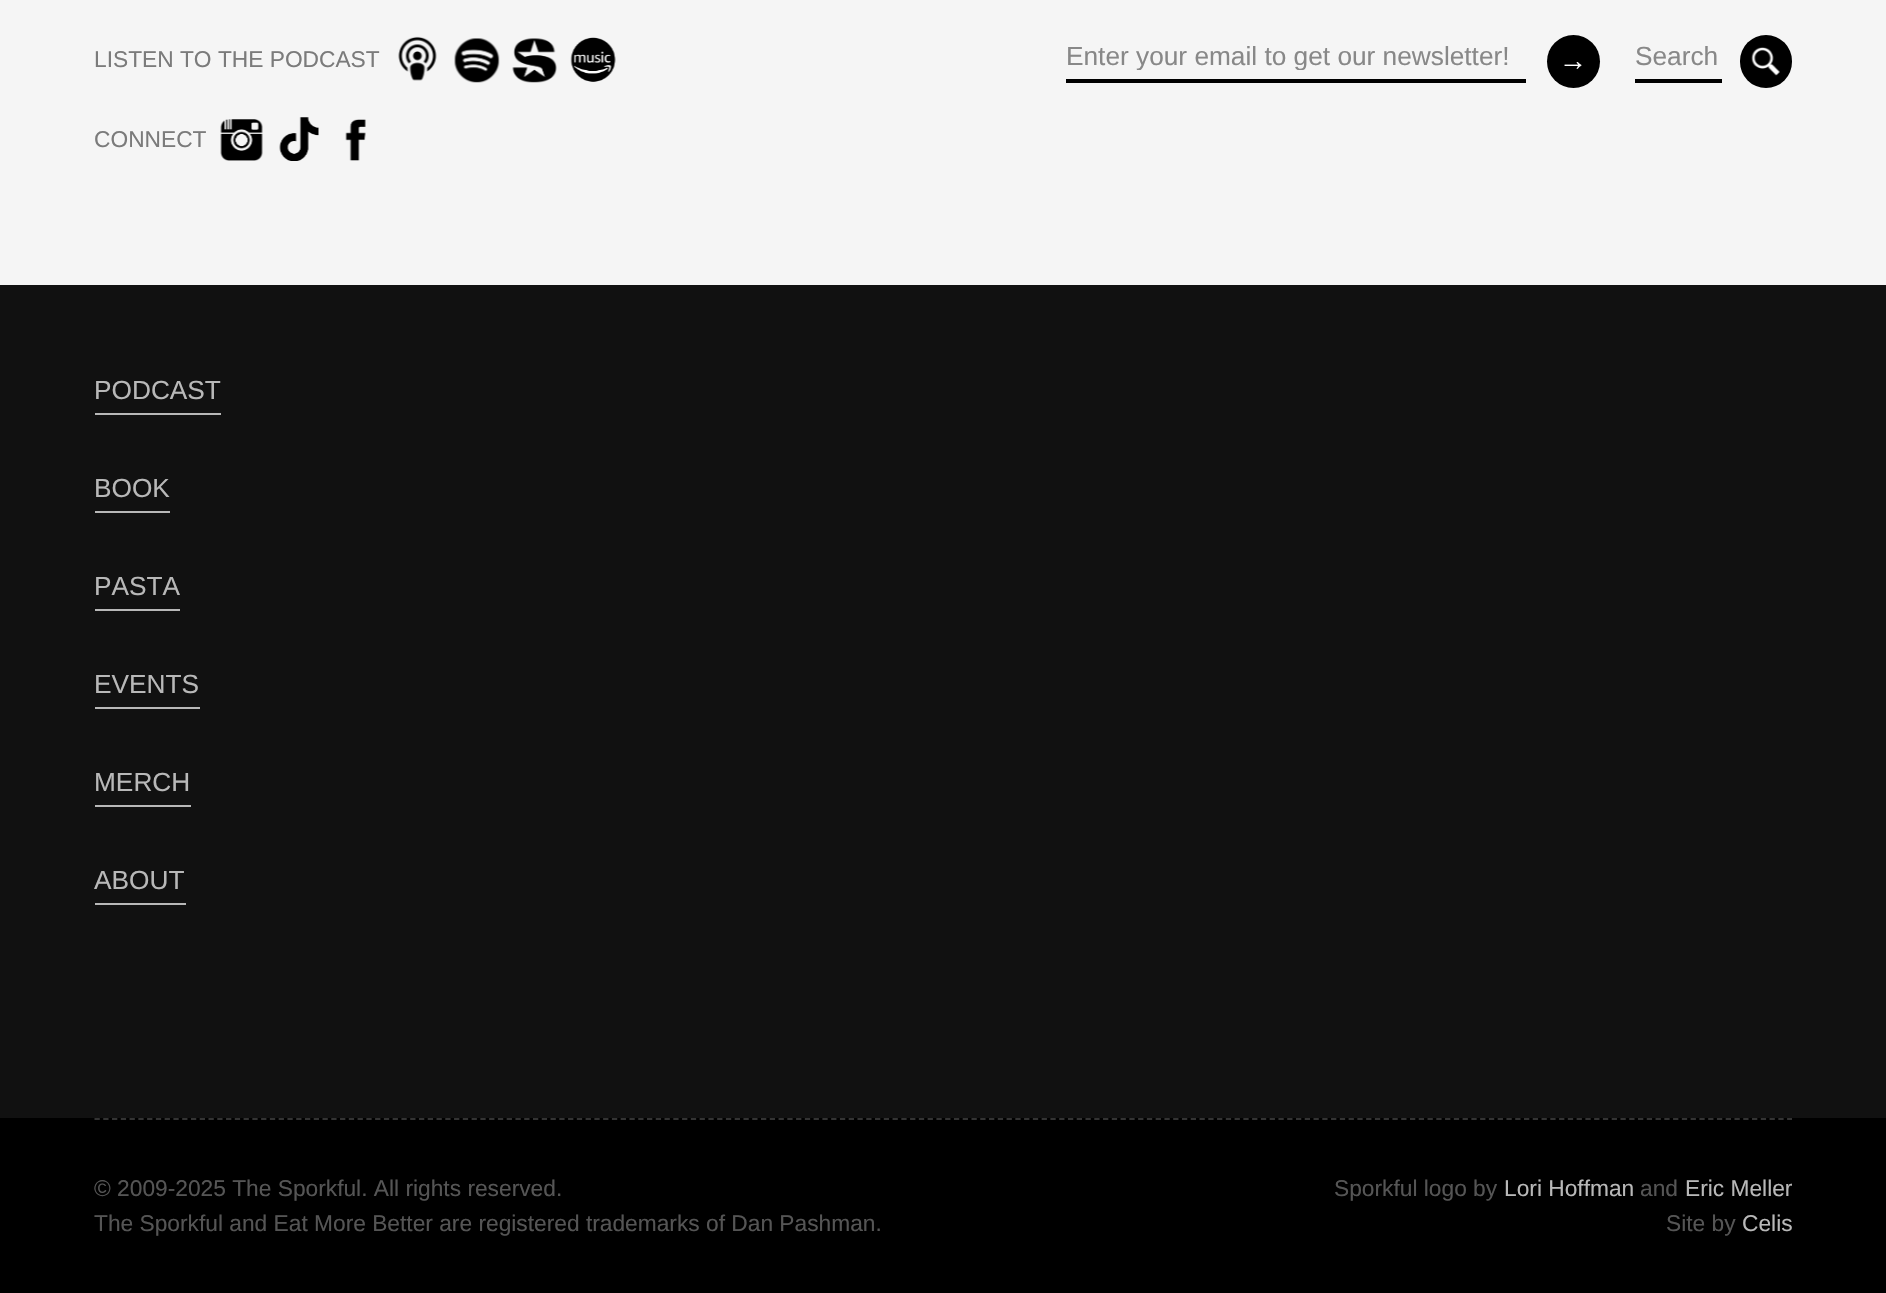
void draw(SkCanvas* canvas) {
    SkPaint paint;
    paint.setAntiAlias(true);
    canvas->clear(0xFFF5F5F5);
    SkFont font1(fontMgr->matchFamilyStyle("Liberation Sans", SkFontStyle::Normal()), 22.75f);
    font1.setSubpixel(true);
    paint.setColor(0xFF7B7B7B);
    canvas->drawString("LISTEN TO THE PODCAST", 94, 67, font1, paint);
    canvas->drawImageRect(SkImages::DeferredFromEncodedData(SkData::MakeFromFileName("img1.png")), SkRect::MakeXYWH(398, 36, 39, 45), SkSamplingOptions());
    canvas->drawImageRect(SkImages::DeferredFromEncodedData(SkData::MakeFromFileName("img2.png")), SkRect::MakeXYWH(454, 38, 46, 45), SkSamplingOptions());
    canvas->drawImageRect(SkImages::DeferredFromEncodedData(SkData::MakeFromFileName("img3.png")), SkRect::MakeXYWH(512, 38, 45, 45), SkSamplingOptions());
    canvas->drawImageRect(SkImages::DeferredFromEncodedData(SkData::MakeFromFileName("img4.png")), SkRect::MakeXYWH(570, 37, 46, 45), SkSamplingOptions());
    canvas->drawString("CONNECT", 94, 147, font1, paint);
    canvas->drawImageRect(SkImages::DeferredFromEncodedData(SkData::MakeFromFileName("img5.png")), SkRect::MakeXYWH(220, 119, 43, 42), SkSamplingOptions());
    canvas->drawImageRect(SkImages::DeferredFromEncodedData(SkData::MakeFromFileName("img6.png")), SkRect::MakeXYWH(279, 117, 40, 44), SkSamplingOptions());
    canvas->drawImageRect(SkImages::DeferredFromEncodedData(SkData::MakeFromFileName("img7.png")), SkRect::MakeXYWH(345, 119, 21, 42), SkSamplingOptions());
    paint.setColor(0xFF000000);
    canvas->drawRect(SkRect::MakeXYWH(1066, 79, 460, 4), paint);
    canvas->save();
    canvas->clipRect(SkRect::MakeXYWH(1066, 40, 460, 30));
    SkFont font2(fontMgr->matchFamilyStyle("Liberation Sans", SkFontStyle::Normal()), 26.25f);
    font2.setSubpixel(true);
    paint.setColor(0xFF888888);
    canvas->drawString("Enter your email to get our newsletter!", 1066, 65, font2, paint);
    canvas->restore();
    paint.setColor(0xFF000000);
    canvas->drawCircle(1573.5f, 61.5f, 26.5f, paint);
    SkFont font3(fontMgr->matchFamilyStyle("Liberation Sans", SkFontStyle::Bold()), 28);
    font3.setSubpixel(true);
    paint.setColor(0xFFFFFFFF);
    canvas->drawString("→", 1559, 70, font3, paint);
    paint.setColor(0xFF000000);
    canvas->drawRect(SkRect::MakeXYWH(1635, 79, 87, 4), paint);
    paint.setColor(0xFF888888);
    canvas->drawString("Search", 1635, 65, font2, paint);
    paint.setColor(0xFF000000);
    canvas->drawRoundRect(SkRect::MakeXYWH(1740, 35, 52, 53), 26, 26, paint);
    canvas->drawImageRect(SkImages::DeferredFromEncodedData(SkData::MakeFromFileName("img8.png")), SkRect::MakeXYWH(1751, 47, 29, 29), SkSamplingOptions());
    paint.setColor(0xFF111111);
    canvas->drawRect(SkRect::MakeXYWH(0, 285, 1886, 833), paint);
    paint.setColor(0xFFB8B8B8);
    canvas->drawRect(SkRect::MakeXYWH(95, 413, 126, 2), paint);
    canvas->drawString("PODCAST", 94, 399, font2, paint);
    canvas->drawRect(SkRect::MakeXYWH(95, 511, 75, 2), paint);
    canvas->drawString("BOOK", 94, 497, font2, paint);
    canvas->drawRect(SkRect::MakeXYWH(95, 609, 85, 2), paint);
    canvas->drawString("PASTA", 94, 595, font2, paint);
    canvas->drawRect(SkRect::MakeXYWH(95, 707, 105, 2), paint);
    canvas->drawString("EVENTS", 94, 693, font2, paint);
    canvas->drawRect(SkRect::MakeXYWH(95, 805, 96, 2), paint);
    canvas->drawString("MERCH", 94, 791, font2, paint);
    canvas->drawRect(SkRect::MakeXYWH(95, 903, 91, 2), paint);
    canvas->drawString("ABOUT", 94, 889, font2, paint);
    paint.setColor(0xFF000000);
    canvas->drawRect(SkRect::MakeXYWH(0, 1118, 1886, 175), paint);
    paint.setStyle(SkPaint::kStroke_Style);
    paint.setStrokeWidth(1.8f);
    paint.setColor(0xFF333333);
    paint.setPathEffect(SkDashPathEffect::Make({{5.25f, 3.52f}}, 0));
    canvas->drawPath(SkPathBuilder().moveTo(94.5f, 1119).lineTo(1792, 1119).detach(), paint);
    paint.setPathEffect(nullptr);
    paint.setStyle(SkPaint::kFill_Style);
    paint.setColor(0xFF555555);
    canvas->drawString("© 2009-2025 The Sporkful. All rights reserved.", 94, 1196, font1, paint);
    canvas->drawString("The Sporkful and Eat More Better are registered trademarks of Dan Pashman.", 94, 1231, font1, paint);
    canvas->drawString("Sporkful logo by", 1334, 1196, font1, paint);
    paint.setColor(0xFFB8B8B8);
    canvas->drawString("Lori Hoffman", 1504, 1196, font1, paint);
    paint.setColor(0xFF555555);
    canvas->drawString("and", 1640, 1196, font1, paint);
    paint.setColor(0xFFB8B8B8);
    canvas->drawString("Eric Meller", 1685, 1196, font1, paint);
    paint.setColor(0xFF555555);
    canvas->drawString("Site by", 1666, 1231, font1, paint);
    paint.setColor(0xFFB8B8B8);
    canvas->drawString("Celis", 1742, 1231, font1, paint);
}
